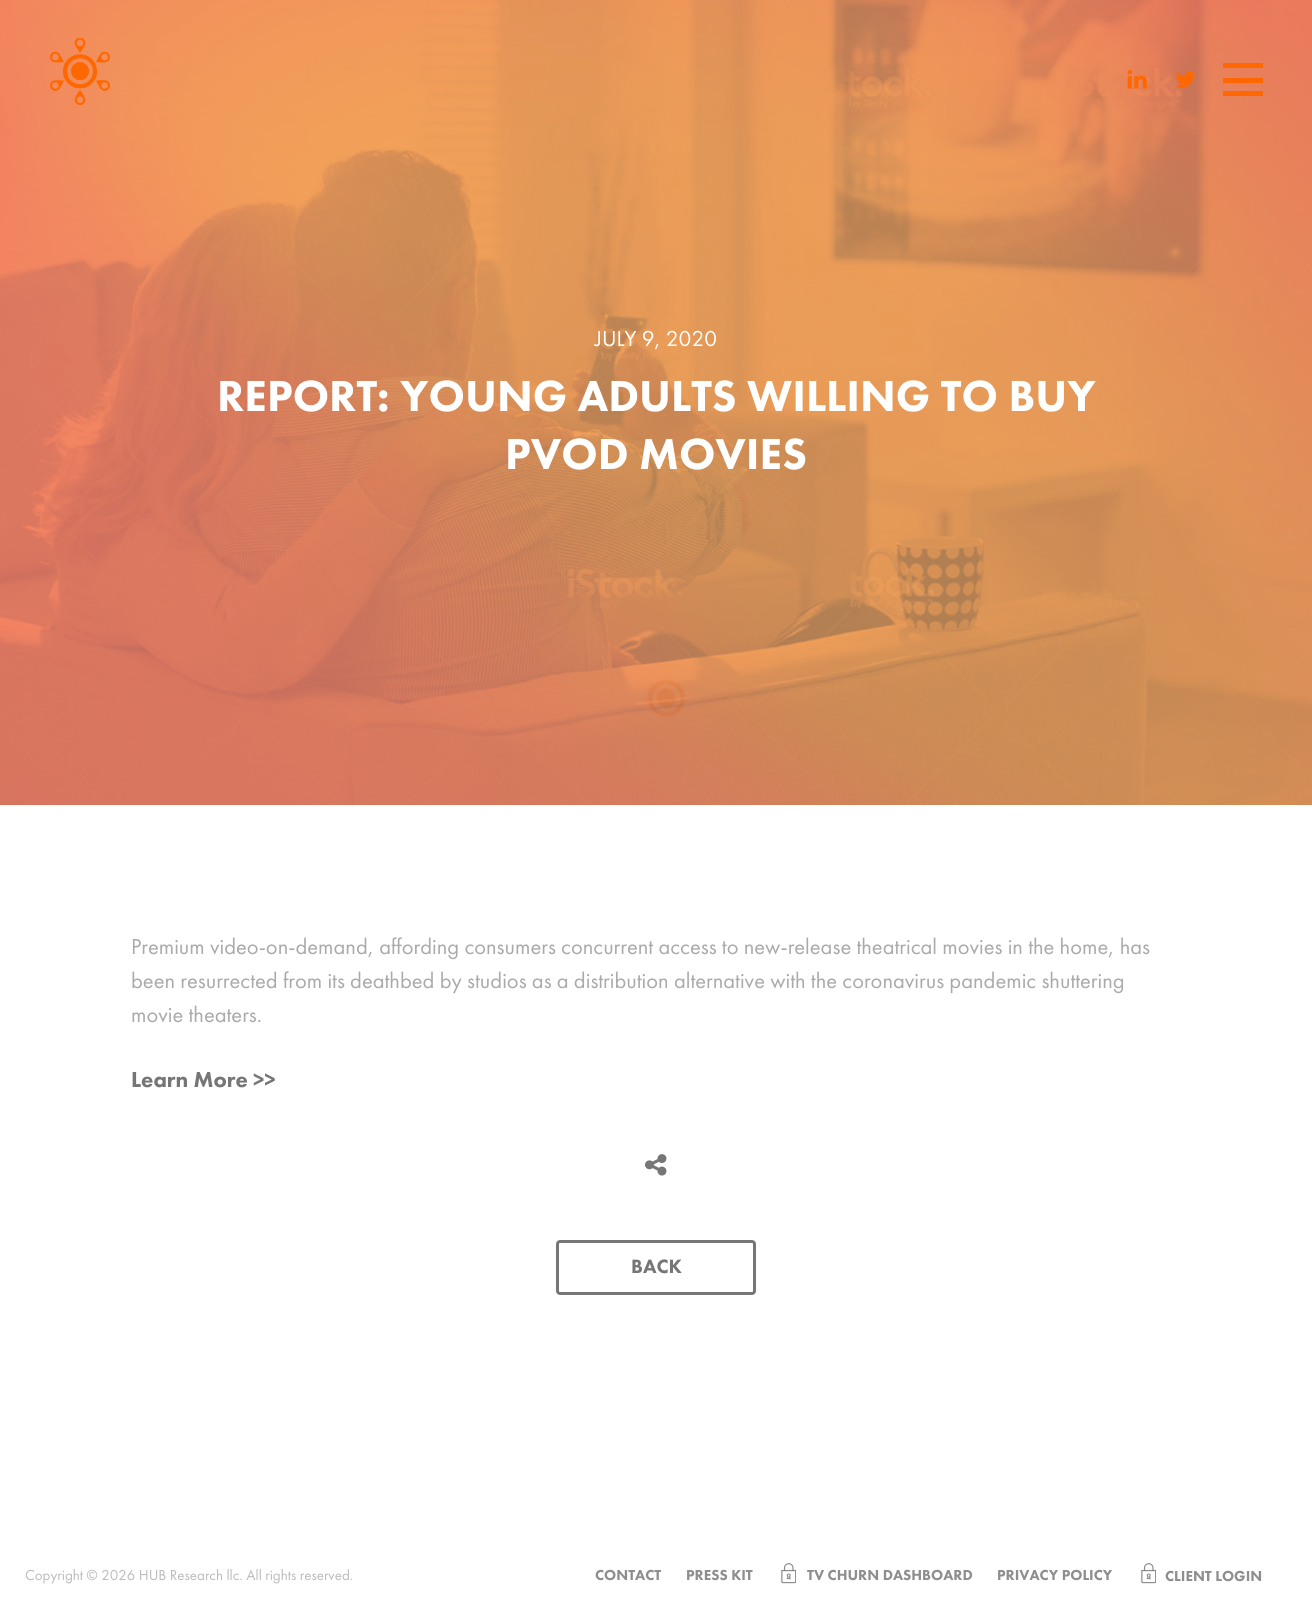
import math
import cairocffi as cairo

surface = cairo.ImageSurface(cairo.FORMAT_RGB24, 1312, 1608)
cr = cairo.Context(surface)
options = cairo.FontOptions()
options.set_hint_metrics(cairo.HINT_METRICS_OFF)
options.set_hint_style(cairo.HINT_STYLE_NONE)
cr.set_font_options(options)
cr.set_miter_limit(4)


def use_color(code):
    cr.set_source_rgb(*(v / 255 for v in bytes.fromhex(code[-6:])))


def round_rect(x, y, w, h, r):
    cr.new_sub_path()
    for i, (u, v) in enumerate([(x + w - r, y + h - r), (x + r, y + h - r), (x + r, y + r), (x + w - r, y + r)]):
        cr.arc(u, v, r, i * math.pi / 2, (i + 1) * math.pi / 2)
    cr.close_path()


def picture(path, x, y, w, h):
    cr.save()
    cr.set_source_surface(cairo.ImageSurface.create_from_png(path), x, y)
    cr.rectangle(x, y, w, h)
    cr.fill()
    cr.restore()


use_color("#ffffff")
cr.paint()
use_color("#dddddd")
cr.rectangle(0, 0, 1312, 805)
cr.fill()
picture("img7.png", 647, 678, 39, 40)
picture("img4.png", 0, 0, 1312, 805)
picture("img1.png", 50, 38, 60, 67)
picture("img2.png", 1127, 70, 20, 19)
picture("img3.png", 1175, 71, 21, 17)
use_color("#ff6800")
cr.rectangle(1223, 63, 40, 5)
cr.fill()
cr.rectangle(1223, 78, 40, 5)
cr.fill()
cr.rectangle(1223, 91, 40, 5)
cr.fill()
cr.select_font_face("Futura PT")
cr.set_font_size(22.5)
use_color("#ffffff")
cr.move_to(595, 346)
cr.show_text("JULY 9, 2020")
cr.select_font_face("Futura PT Black")
cr.set_font_size(45)
cr.move_to(217, 411)
cr.show_text("REPORT: YOUNG ADULTS WILLING TO BUY")
cr.move_to(505, 469)
cr.show_text("PVOD MOVIES")
cr.select_font_face("Futura PT")
cr.set_font_size(22.5)
use_color("#aaaaaa")
cr.move_to(131, 954)
cr.show_text("Premium video-on-demand, affording consumers concurrent access to new-release theatrical movies in the home, has")
cr.move_to(131, 988)
cr.show_text("been resurrected from its deathbed by studios as a distribution alternative with the coronavirus pandemic shuttering")
cr.move_to(131, 1022)
cr.show_text("movie theaters.")
cr.select_font_face("Futura PT Black")
use_color("#767676")
cr.move_to(131, 1087)
cr.show_text("Learn More >>")
picture("img5.png", 645, 1154, 22, 22)
round_rect(557.5, 1241.5, 197, 52, 2.5)
cr.set_line_width(3)
cr.stroke()
cr.set_font_size(20)
cr.move_to(631, 1273)
cr.show_text("BACK")
cr.select_font_face("Futura PT")
cr.set_font_size(15)
use_color("#bbbbbb")
cr.move_to(25, 1580)
cr.show_text("Copyright © 2026 HUB Research llc. All rights reserved.")
cr.select_font_face("Futura PT Black")
use_color("#8e8e8e")
cr.move_to(595, 1580)
cr.show_text("CONTACT")
cr.move_to(686, 1580)
cr.show_text("PRESS KIT")
picture("img6.png", 781, 1563, 15, 21)
cr.move_to(807, 1580)
cr.show_text("TV CHURN DASHBOARD")
cr.move_to(997, 1580)
cr.show_text("PRIVACY POLICY")
picture("img6.png", 1141, 1563, 15, 21)
cr.move_to(1165, 1581)
cr.show_text("CLIENT LOGIN")
surface.write_to_png("result.png")
